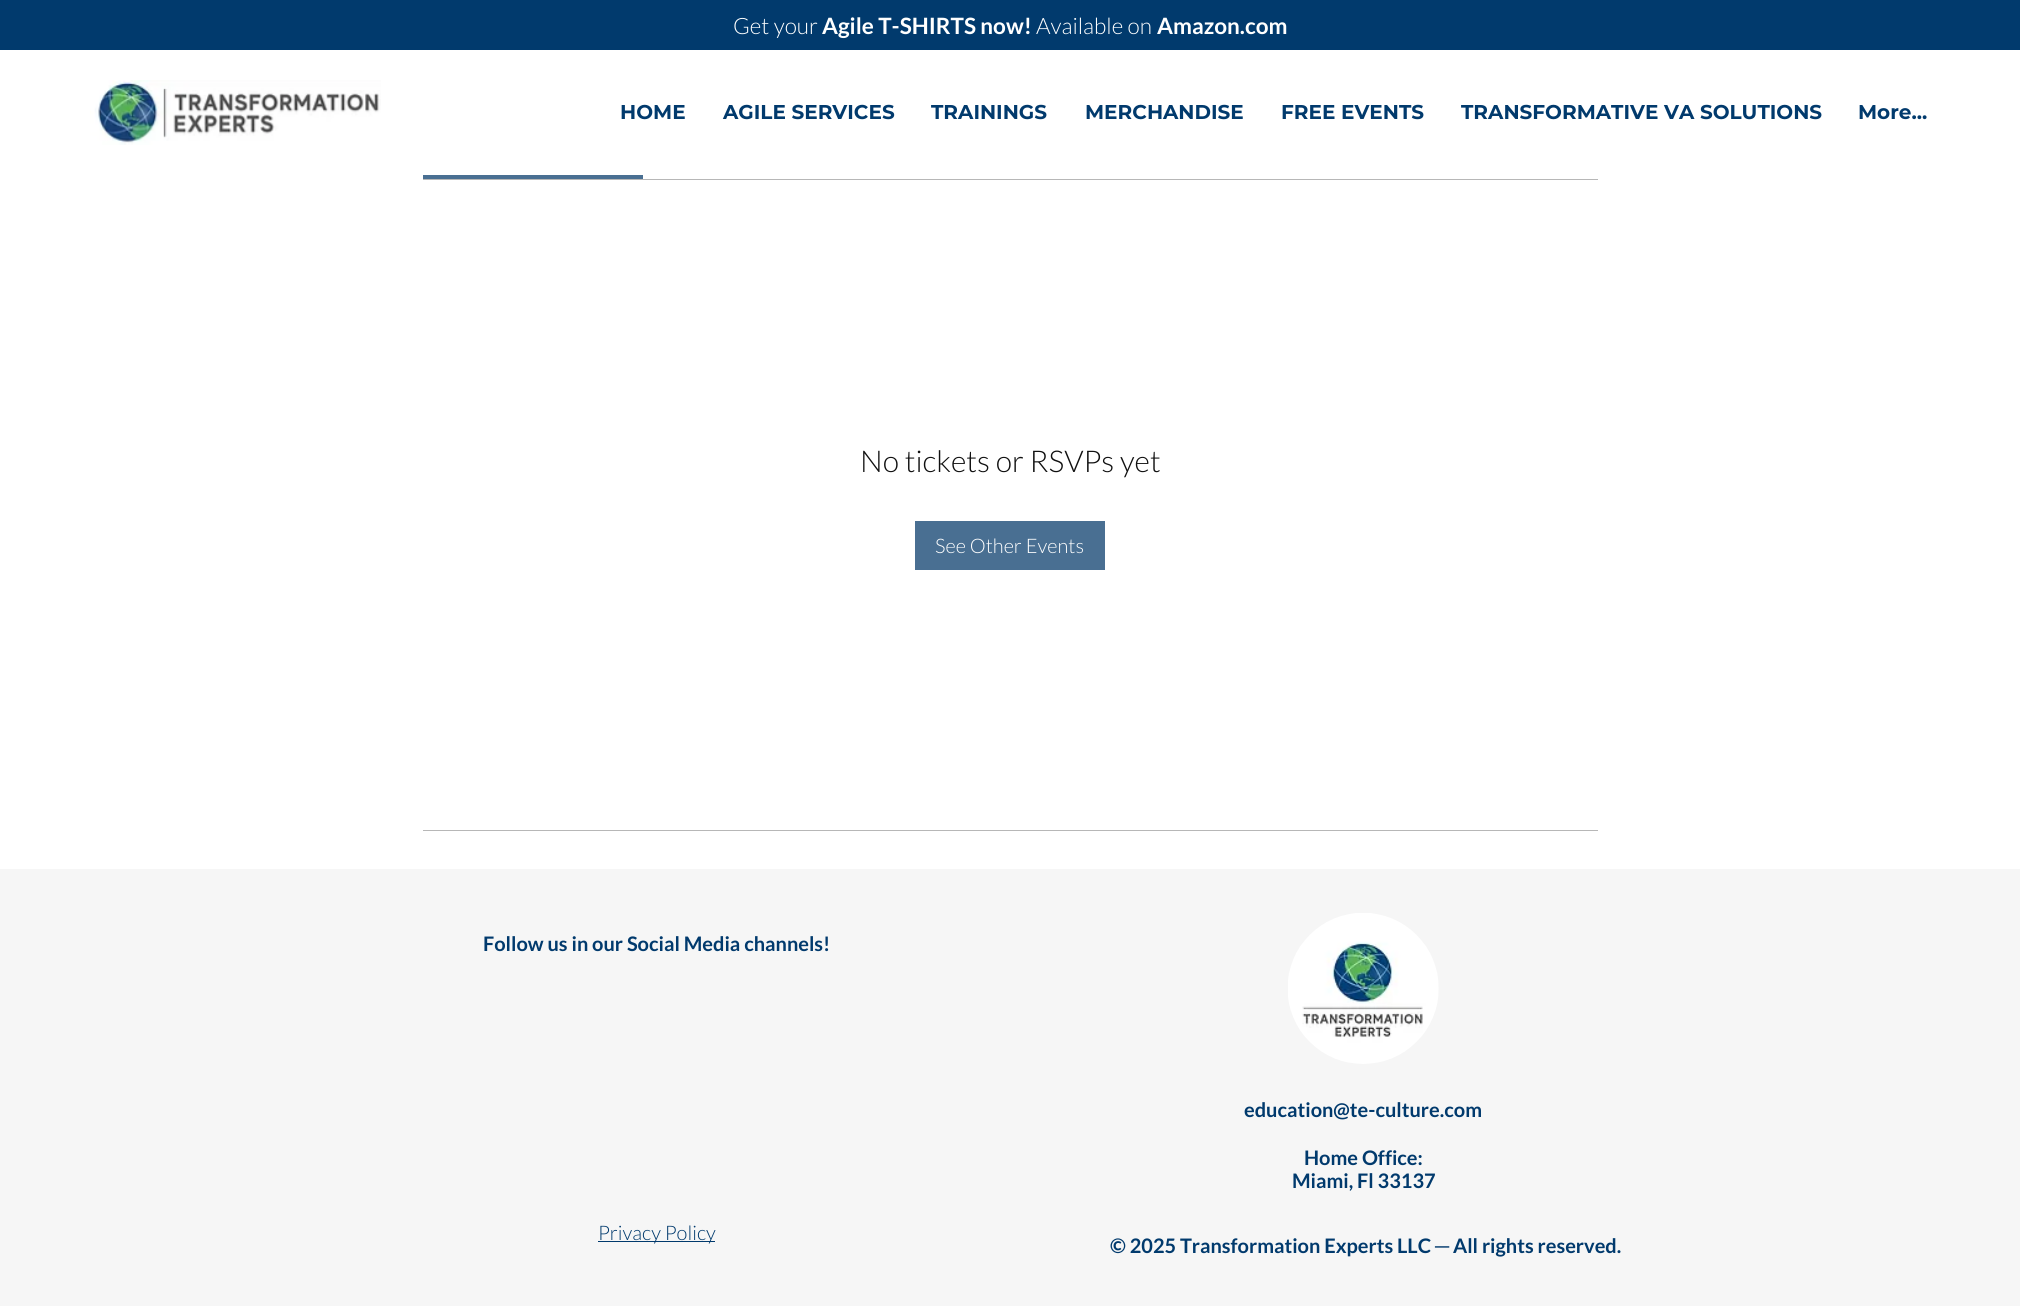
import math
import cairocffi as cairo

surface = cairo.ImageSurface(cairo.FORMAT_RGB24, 2020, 1306)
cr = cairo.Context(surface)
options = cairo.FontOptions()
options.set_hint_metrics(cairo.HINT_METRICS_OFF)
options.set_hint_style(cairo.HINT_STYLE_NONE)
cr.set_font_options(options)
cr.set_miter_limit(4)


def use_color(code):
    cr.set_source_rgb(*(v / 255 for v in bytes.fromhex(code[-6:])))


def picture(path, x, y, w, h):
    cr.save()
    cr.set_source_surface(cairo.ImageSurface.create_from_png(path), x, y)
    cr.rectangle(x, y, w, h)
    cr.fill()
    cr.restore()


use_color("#ffffff")
cr.paint()
use_color("#013a6d")
cr.rectangle(0, 0, 2020, 50)
cr.fill()
cr.select_font_face("Lato Light")
cr.set_font_size(22.5)
use_color("#ffffff")
cr.move_to(733, 34)
cr.show_text("Get your")
cr.select_font_face("Lato", cairo.FONT_SLANT_NORMAL, cairo.FONT_WEIGHT_BOLD)
cr.move_to(822, 34)
cr.show_text("Agile T-SHIRTS now!")
cr.select_font_face("Lato Light")
cr.move_to(1036, 34)
cr.show_text("Available on")
cr.select_font_face("Lato", cairo.FONT_SLANT_NORMAL, cairo.FONT_WEIGHT_BOLD)
cr.move_to(1157, 34)
cr.show_text("Amazon.com")
picture("img1.png", 90, 80, 291, 65)
cr.select_font_face("Montserrat", cairo.FONT_SLANT_NORMAL, cairo.FONT_WEIGHT_BOLD)
cr.set_font_size(20)
use_color("#013a6d")
cr.move_to(620, 119)
cr.show_text("HOME")
cr.move_to(723, 119)
cr.show_text("AGILE SERVICES")
cr.move_to(931, 119)
cr.show_text("TRAININGS")
cr.move_to(1085, 119)
cr.show_text("MERCHANDISE")
cr.move_to(1281, 119)
cr.show_text("FREE EVENTS")
cr.move_to(1461, 119)
cr.show_text("TRANSFORMATIVE VA SOLUTIONS")
cr.move_to(1858, 119)
cr.show_text("More...")
use_color("#496f92")
cr.rectangle(423, 175, 220, 4)
cr.fill()
use_color("#b7b7b7")
cr.rectangle(423, 179, 1175, 1)
cr.fill()
cr.select_font_face("Lato Light")
cr.set_font_size(30)
use_color("#101010")
cr.move_to(860, 472)
cr.show_text("No tickets or RSVPs yet")
use_color("#496f92")
cr.rectangle(915, 521, 190, 49)
cr.fill()
cr.set_font_size(20)
use_color("#ffffff")
cr.move_to(935, 553)
cr.show_text("See Other Events")
use_color("#b7b7b7")
cr.rectangle(423, 830, 1175, 1)
cr.fill()
use_color("#f6f6f6")
cr.rectangle(0, 869, 2020, 437)
cr.fill()
cr.select_font_face("Lato", cairo.FONT_SLANT_NORMAL, cairo.FONT_WEIGHT_BOLD)
use_color("#013a6d")
cr.move_to(483, 951)
cr.show_text("Follow us in our Social Media channels!")
cr.rectangle(598, 1241, 117, 1)
cr.fill()
cr.select_font_face("Lato Light")
cr.move_to(598, 1240)
cr.show_text("Privacy Policy")
picture("img2.png", 1288, 913, 151, 151)
cr.select_font_face("Lato", cairo.FONT_SLANT_NORMAL, cairo.FONT_WEIGHT_BOLD)
cr.move_to(1244, 1117)
cr.show_text("education@te-culture.com")
cr.move_to(1304, 1165)
cr.show_text("Home Office:")
cr.move_to(1292, 1188)
cr.show_text("Miami, Fl 33137")
cr.move_to(1110, 1253)
cr.show_text("© 2025 Transformation Experts LLC")
cr.select_font_face("Liberation Sans", cairo.FONT_SLANT_NORMAL, cairo.FONT_WEIGHT_BOLD)
cr.move_to(1435, 1253)
cr.show_text("─")
cr.select_font_face("Lato", cairo.FONT_SLANT_NORMAL, cairo.FONT_WEIGHT_BOLD)
cr.move_to(1453, 1253)
cr.show_text("All rights reserved.")
surface.write_to_png("result.png")
